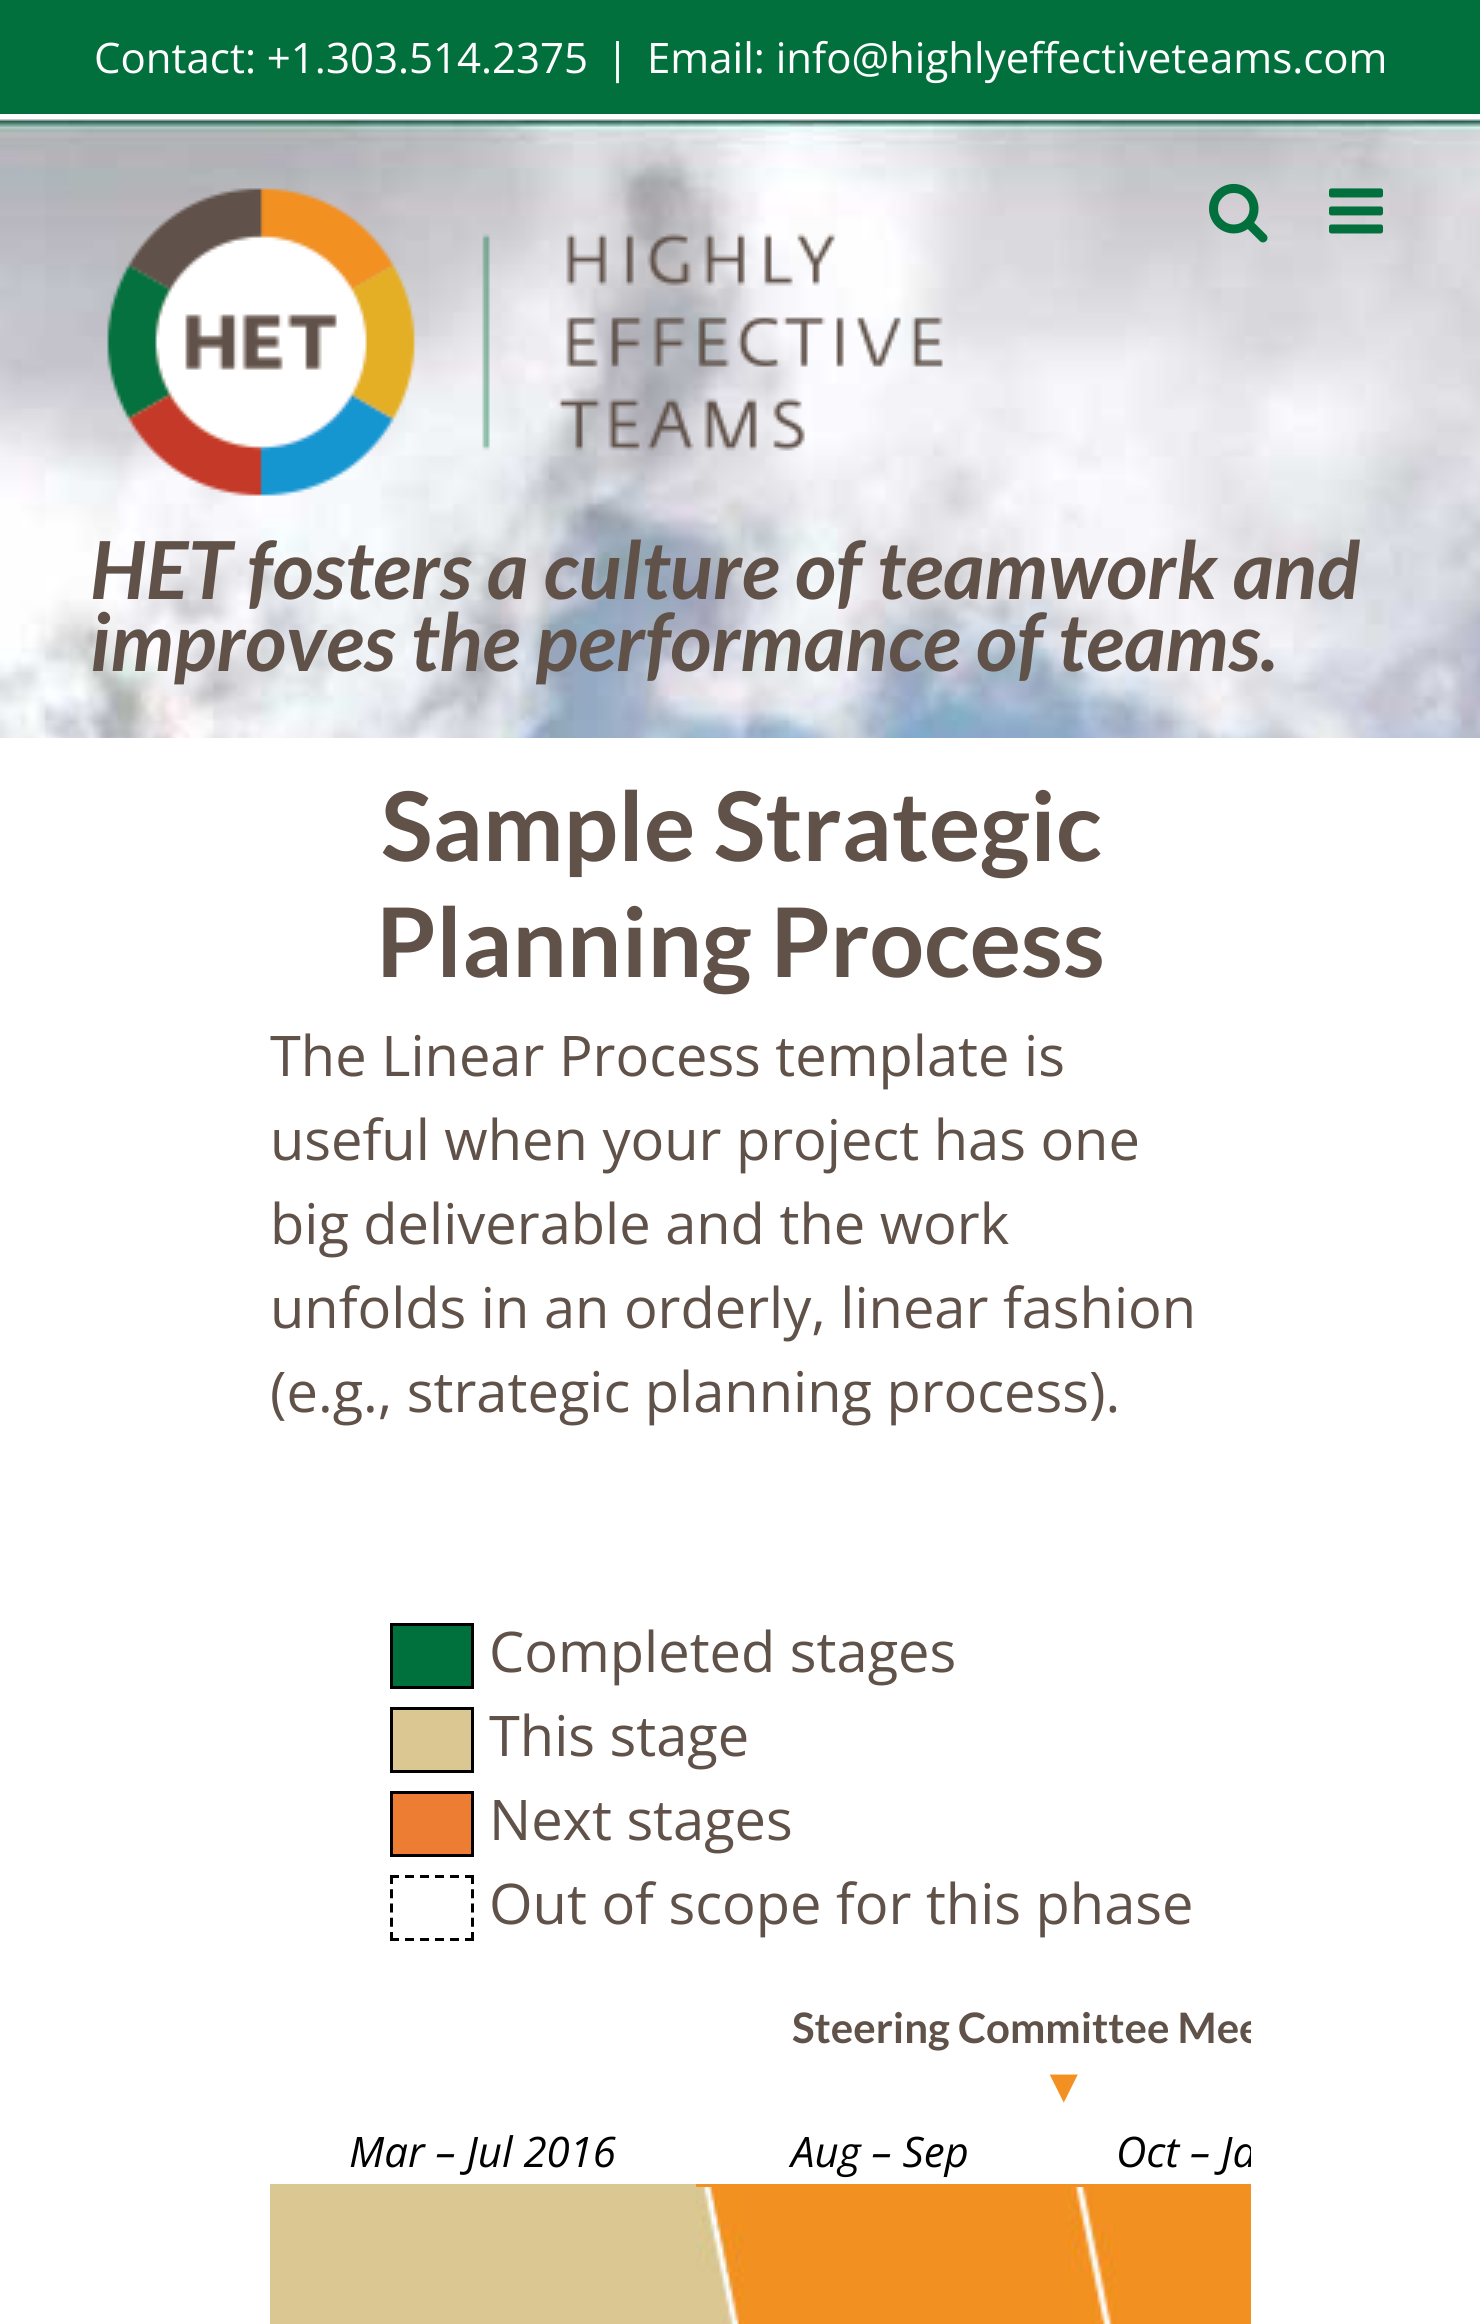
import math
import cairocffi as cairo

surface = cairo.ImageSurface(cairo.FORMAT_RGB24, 1480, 2324)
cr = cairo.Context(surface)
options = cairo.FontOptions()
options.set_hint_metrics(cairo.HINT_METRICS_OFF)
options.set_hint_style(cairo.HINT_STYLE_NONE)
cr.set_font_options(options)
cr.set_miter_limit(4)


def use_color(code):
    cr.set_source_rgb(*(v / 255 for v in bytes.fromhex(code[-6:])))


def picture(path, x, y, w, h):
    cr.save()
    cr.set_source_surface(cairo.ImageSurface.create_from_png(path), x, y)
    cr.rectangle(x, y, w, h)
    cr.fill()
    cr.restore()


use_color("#ffffff")
cr.paint()
use_color("#02703c")
cr.rectangle(0, 0, 1480, 114)
cr.fill()
cr.select_font_face("Open Sans")
cr.set_font_size(42)
use_color("#ffffff")
cr.move_to(94, 73)
cr.show_text("Contact: +1.303.514.2375")
cr.move_to(606, 73)
cr.show_text("|")
cr.move_to(647, 73)
cr.show_text("Email: info@highlyeffectiveteams.com")
picture("img1.png", 0, 119, 1480, 619)
picture("img2.png", 1209, 183, 59, 60)
picture("img3.png", 1329, 188, 54, 46)
picture("img4.png", 107, 188, 836, 308)
cr.select_font_face("Lato", cairo.FONT_SLANT_ITALIC, cairo.FONT_WEIGHT_BOLD)
cr.set_font_size(80)
use_color("#605149")
cr.move_to(90, 599)
cr.show_text("HET fosters a culture of teamwork and")
cr.move_to(90, 671)
cr.show_text("improves the performance of teams.")
cr.select_font_face("Lato", cairo.FONT_SLANT_NORMAL, cairo.FONT_WEIGHT_BOLD)
cr.set_font_size(96)
cr.move_to(381, 861)
cr.show_text("Sample Strategic")
cr.move_to(376, 977)
cr.show_text("Planning Process")
cr.select_font_face("Open Sans")
cr.set_font_size(56)
cr.move_to(270, 1076)
cr.show_text("The Linear Process template is")
cr.move_to(270, 1160)
cr.show_text("useful when your project has one")
cr.move_to(270, 1244)
cr.show_text("big deliverable and the work")
cr.move_to(270, 1328)
cr.show_text("unfolds in an orderly, linear fashion")
cr.move_to(270, 1412)
cr.show_text("(e.g., strategic planning process).")
use_color("#00703c")
cr.rectangle(391.5, 1624.5, 81, 63)
cr.fill_preserve()
use_color("#000000")
cr.set_line_width(3)
cr.stroke()
use_color("#605149")
cr.move_to(489, 1672)
cr.show_text("Completed stages")
use_color("#dac792")
cr.rectangle(391.5, 1708.5, 81, 63)
cr.fill_preserve()
use_color("#000000")
cr.stroke()
use_color("#605149")
cr.move_to(489, 1756)
cr.show_text("This stage")
use_color("#ed7d32")
cr.rectangle(391.5, 1792.5, 81, 63)
cr.fill_preserve()
use_color("#000000")
cr.stroke()
use_color("#605149")
cr.move_to(489, 1840)
cr.show_text("Next stages")
cr.new_path()
cr.move_to(390, 1876.5)
cr.line_to(474, 1876.5)
use_color("#000000")
cr.set_dash([9, 6])
cr.stroke()
cr.new_path()
cr.move_to(472.5, 1875)
cr.line_to(472.5, 1941)
cr.set_dash([9, 5.25])
cr.stroke()
cr.new_path()
cr.move_to(390, 1939.5)
cr.line_to(474, 1939.5)
cr.set_dash([9, 6])
cr.stroke()
cr.new_path()
cr.move_to(391.5, 1875)
cr.line_to(391.5, 1941)
cr.set_dash([9, 5.25])
cr.stroke()
use_color("#605149")
cr.move_to(489, 1924)
cr.show_text("Out of scope for this phase")
cr.save()
cr.rectangle(270, 2001, 981, 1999)
cr.clip()
cr.select_font_face("Lato", cairo.FONT_SLANT_NORMAL, cairo.FONT_WEIGHT_BOLD)
cr.set_font_size(42)
cr.move_to(792, 2043)
cr.show_text("Steering Committee Mee")
cr.restore()
cr.select_font_face("Liberation Sans", cairo.FONT_SLANT_NORMAL, cairo.FONT_WEIGHT_BOLD)
cr.set_font_size(48)
use_color("#f29121")
cr.move_to(1040, 2102)
cr.show_text("▼")
cr.select_font_face("Open Sans", cairo.FONT_SLANT_ITALIC)
cr.set_font_size(42)
use_color("#000000")
cr.move_to(349, 2167)
cr.show_text("Mar – Jul 2016")
cr.move_to(791, 2167)
cr.show_text("Aug – Sep")
cr.save()
cr.rectangle(270, 2001, 981, 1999)
cr.clip()
cr.move_to(1116, 2167)
cr.show_text("Oct – Ja")
cr.restore()
use_color("#dac792")
cr.rectangle(273, 2187, 420, 137)
cr.fill()
use_color("#f29121")
cr.rectangle(693, 2184, 558, 3)
cr.fill()
use_color("#dac792")
cr.rectangle(270, 2184, 426, 3)
cr.fill()
cr.rectangle(693, 2184, 3, 140)
cr.fill()
cr.rectangle(270, 2184, 3, 140)
cr.fill()
use_color("#f29121")
cr.rectangle(745, 2187, 506, 137)
cr.fill()
picture("img5.png", 1068, 2187, 49, 137)
picture("img6.png", 696, 2187, 49, 137)
surface.write_to_png("result.png")
